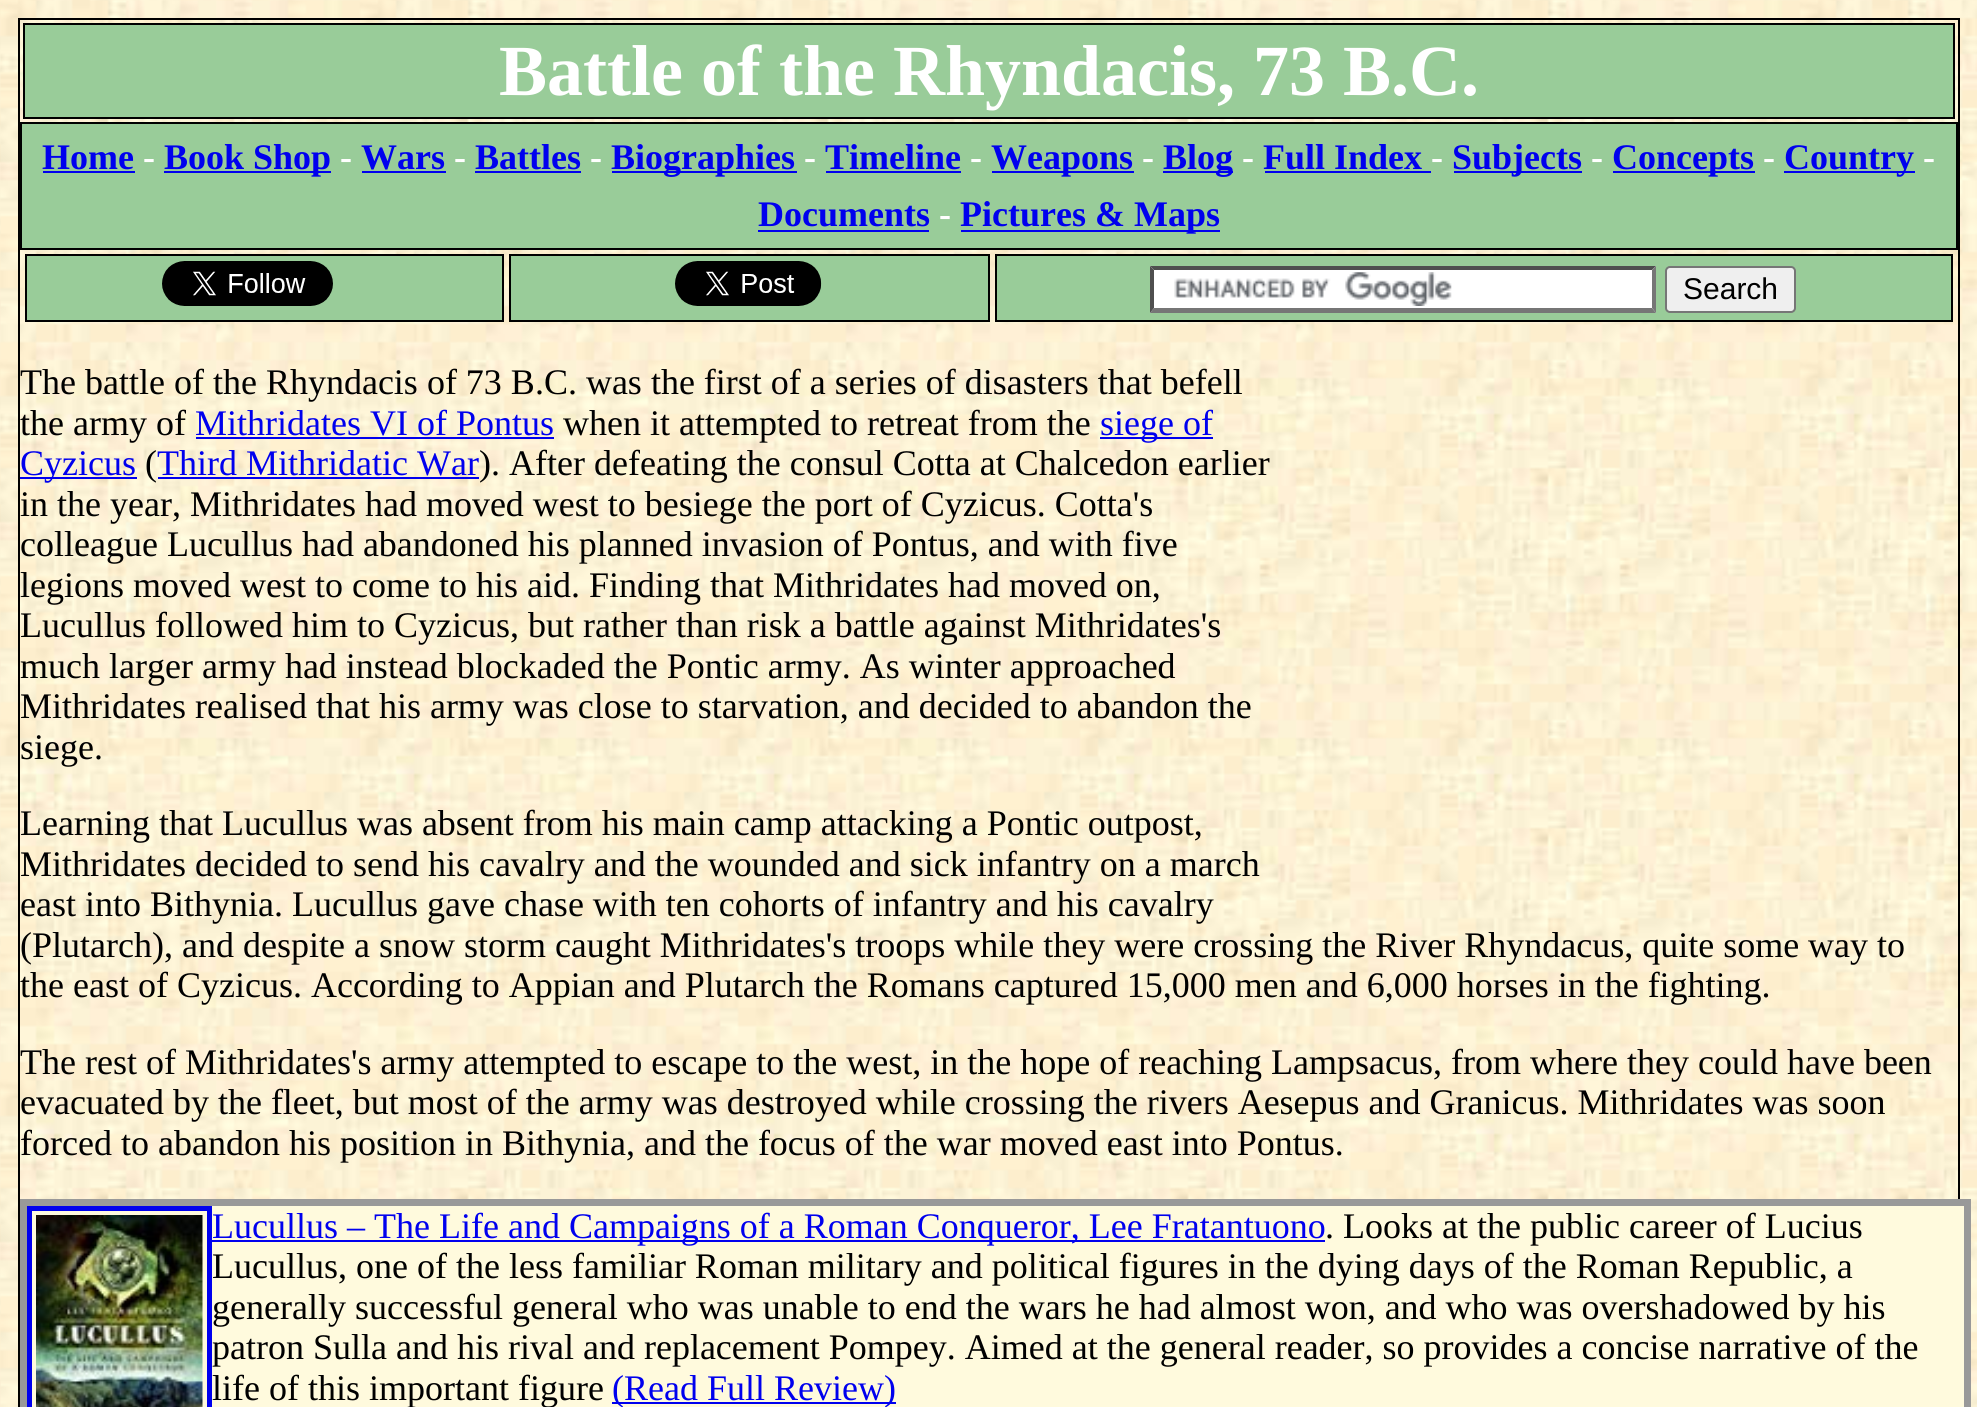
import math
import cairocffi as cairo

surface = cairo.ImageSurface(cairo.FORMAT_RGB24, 1977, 1407)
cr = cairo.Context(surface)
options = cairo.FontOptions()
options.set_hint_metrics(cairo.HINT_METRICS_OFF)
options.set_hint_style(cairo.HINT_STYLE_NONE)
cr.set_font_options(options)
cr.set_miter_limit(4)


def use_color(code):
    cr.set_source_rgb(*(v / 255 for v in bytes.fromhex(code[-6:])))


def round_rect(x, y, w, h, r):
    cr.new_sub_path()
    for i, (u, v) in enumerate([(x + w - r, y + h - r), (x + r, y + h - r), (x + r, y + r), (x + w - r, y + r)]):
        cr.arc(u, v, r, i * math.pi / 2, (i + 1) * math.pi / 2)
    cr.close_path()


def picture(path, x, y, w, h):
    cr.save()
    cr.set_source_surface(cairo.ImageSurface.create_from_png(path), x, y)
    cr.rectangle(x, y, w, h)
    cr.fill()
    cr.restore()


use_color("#ffffff")
cr.paint()
picture("img1.png", 0, 0, 1977, 1407)
cr.rectangle(19, 19, 1940, 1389)
use_color("#000000")
cr.stroke()
use_color("#99cc99")
cr.rectangle(24, 24, 1930, 94)
cr.fill_preserve()
use_color("#000000")
cr.stroke()
cr.select_font_face("Liberation Serif", cairo.FONT_SLANT_NORMAL, cairo.FONT_WEIGHT_BOLD)
cr.set_font_size(72)
use_color("#ffffff")
cr.move_to(499, 95)
cr.show_text("Battle of the Rhyndacis, 73 B.C.")
use_color("#99cc99")
cr.rectangle(21, 123, 1936, 126)
cr.fill_preserve()
use_color("#000000")
cr.stroke()
cr.set_font_size(36)
use_color("#0000ee")
cr.move_to(42, 169)
cr.show_text("Home")
cr.rectangle(43, 171, 92, 2)
cr.fill()
use_color("#ffffff")
cr.move_to(143, 169)
cr.show_text("-")
use_color("#0000ee")
cr.rectangle(164, 171, 167, 2)
cr.fill()
cr.move_to(164, 169)
cr.show_text("Book Shop")
use_color("#ffffff")
cr.move_to(340, 169)
cr.show_text("-")
use_color("#0000ee")
cr.move_to(361, 169)
cr.show_text("Wars")
cr.rectangle(362, 171, 84, 2)
cr.fill()
use_color("#ffffff")
cr.move_to(454, 169)
cr.show_text("-")
use_color("#0000ee")
cr.move_to(475, 169)
cr.show_text("Battles")
cr.rectangle(475, 171, 106, 2)
cr.fill()
use_color("#ffffff")
cr.move_to(590, 169)
cr.show_text("-")
use_color("#0000ee")
cr.rectangle(612, 171, 185, 2)
cr.fill()
cr.move_to(611, 169)
cr.show_text("Biographies")
use_color("#ffffff")
cr.move_to(804, 169)
cr.show_text("-")
use_color("#0000ee")
cr.move_to(825, 169)
cr.show_text("Timeline")
cr.rectangle(826, 171, 135, 2)
cr.fill()
use_color("#ffffff")
cr.move_to(970, 169)
cr.show_text("-")
use_color("#0000ee")
cr.rectangle(992, 171, 142, 2)
cr.fill()
cr.move_to(991, 169)
cr.show_text("Weapons")
use_color("#ffffff")
cr.move_to(1142, 169)
cr.show_text("-")
use_color("#0000ee")
cr.rectangle(1163, 171, 70, 2)
cr.fill()
cr.move_to(1163, 169)
cr.show_text("Blog")
use_color("#ffffff")
cr.move_to(1242, 169)
cr.show_text("-")
use_color("#0000ee")
cr.move_to(1263, 169)
cr.show_text("Full Index")
use_color("#ffffff")
cr.move_to(1431, 169)
cr.show_text("-")
use_color("#0000ee")
cr.rectangle(1265, 171, 166, 2)
cr.fill()
cr.rectangle(1454, 171, 128, 2)
cr.fill()
cr.move_to(1452, 169)
cr.show_text("Subjects")
use_color("#ffffff")
cr.move_to(1591, 169)
cr.show_text("-")
use_color("#0000ee")
cr.rectangle(1613, 171, 142, 2)
cr.fill()
cr.move_to(1612, 169)
cr.show_text("Concepts")
use_color("#ffffff")
cr.move_to(1763, 169)
cr.show_text("-")
use_color("#0000ee")
cr.rectangle(1784, 171, 131, 2)
cr.fill()
cr.move_to(1784, 169)
cr.show_text("Country")
use_color("#ffffff")
cr.move_to(1923, 169)
cr.show_text("-")
use_color("#0000ee")
cr.move_to(758, 226)
cr.show_text("Documents")
cr.rectangle(758, 230, 171, 2)
cr.fill()
use_color("#ffffff")
cr.move_to(939, 226)
cr.show_text("-")
use_color("#0000ee")
cr.rectangle(961, 230, 259, 2)
cr.fill()
cr.move_to(960, 226)
cr.show_text("Pictures & Maps")
use_color("#99cc99")
cr.rectangle(26, 255, 477, 66)
cr.fill_preserve()
use_color("#000000")
cr.stroke()
picture("img2.png", 162, 261, 171, 45)
use_color("#99cc99")
cr.rectangle(510, 255, 479, 66)
cr.fill_preserve()
use_color("#000000")
cr.stroke()
picture("img3.png", 675, 261, 147, 45)
use_color("#99cc99")
cr.rectangle(996, 255, 956, 66)
cr.fill_preserve()
use_color("#000000")
cr.stroke()
use_color("#ffffff")
cr.rectangle(1150, 266, 506, 47)
cr.fill()
picture("img4.png", 1174, 272, 278, 34)
use_color("#4f4f4f")
cr.new_path()
cr.move_to(1150, 266)
cr.line_to(1656, 266)
cr.line_to(1652, 270)
cr.line_to(1154, 270)
cr.close_path()
cr.fill()
use_color("#767676")
cr.new_path()
cr.move_to(1656, 266)
cr.line_to(1656, 313)
cr.line_to(1652, 308)
cr.line_to(1652, 270)
cr.close_path()
cr.fill()
cr.new_path()
cr.move_to(1656, 313)
cr.line_to(1150, 313)
cr.line_to(1154, 308)
cr.line_to(1652, 308)
cr.close_path()
cr.fill()
use_color("#4f4f4f")
cr.new_path()
cr.move_to(1150, 313)
cr.line_to(1150, 266)
cr.line_to(1154, 270)
cr.line_to(1154, 308)
cr.close_path()
cr.fill()
use_color("#efefef")
round_rect(1666, 267, 129, 45, 4)
cr.fill_preserve()
use_color("#767676")
cr.stroke()
cr.select_font_face("Liberation Sans")
cr.set_font_size(30)
use_color("#000000")
cr.move_to(1683, 299)
cr.show_text("Search")
cr.select_font_face("Liberation Serif")
cr.set_font_size(36)
cr.move_to(20, 394)
cr.show_text("The battle of the Rhyndacis of 73 B.C. was the first of a series of disasters that befell")
cr.move_to(20, 435)
cr.show_text("the army of")
use_color("#0000ee")
cr.move_to(195, 435)
cr.show_text("Mithridates VI of Pontus")
cr.rectangle(196, 437, 358, 2)
cr.fill()
use_color("#000000")
cr.move_to(563, 435)
cr.show_text("when it attempted to retreat from the")
use_color("#0000ee")
cr.rectangle(1100, 437, 113, 2)
cr.fill()
cr.move_to(1100, 435)
cr.show_text("siege of")
cr.rectangle(20, 477, 117, 2)
cr.fill()
cr.move_to(20, 475)
cr.show_text("Cyzicus")
use_color("#000000")
cr.move_to(145, 475)
cr.show_text("(")
use_color("#0000ee")
cr.move_to(157, 475)
cr.show_text("Third Mithridatic War")
cr.rectangle(158, 477, 321, 2)
cr.fill()
use_color("#000000")
cr.move_to(479, 475)
cr.show_text("). After defeating the consul Cotta at Chalcedon earlier")
cr.move_to(20, 516)
cr.show_text("in the year, Mithridates had moved west to besiege the port of Cyzicus. Cotta's")
cr.move_to(20, 556)
cr.show_text("colleague Lucullus had abandoned his planned invasion of Pontus, and with five")
cr.move_to(20, 597)
cr.show_text("legions moved west to come to his aid. Finding that Mithridates had moved on,")
cr.move_to(20, 637)
cr.show_text("Lucullus followed him to Cyzicus, but rather than risk a battle against Mithridates's")
cr.move_to(20, 678)
cr.show_text("much larger army had instead blockaded the Pontic army. As winter approached")
cr.move_to(20, 718)
cr.show_text("Mithridates realised that his army was close to starvation, and decided to abandon the")
cr.move_to(20, 759)
cr.show_text("siege.")
cr.move_to(20, 835)
cr.show_text("Learning that Lucullus was absent from his main camp attacking a Pontic outpost,")
cr.move_to(20, 876)
cr.show_text("Mithridates decided to send his cavalry and the wounded and sick infantry on a march")
cr.move_to(20, 916)
cr.show_text("east into Bithynia. Lucullus gave chase with ten cohorts of infantry and his cavalry")
cr.move_to(20, 957)
cr.show_text("(Plutarch), and despite a snow storm caught Mithridates's troops while they were crossing the River Rhyndacus, quite some way to")
cr.move_to(20, 997)
cr.show_text("the east of Cyzicus. According to Appian and Plutarch the Romans captured 15,000 men and 6,000 horses in the fighting.")
cr.move_to(20, 1074)
cr.show_text("The rest of Mithridates's army attempted to escape to the west, in the hope of reaching Lampsacus, from where they could have been")
cr.move_to(20, 1114)
cr.show_text("evacuated by the fleet, but most of the army was destroyed while crossing the rivers Aesepus and Granicus. Mithridates was soon")
cr.move_to(20, 1155)
cr.show_text("forced to abandon his position in Bithynia, and the focus of the war moved east into Pontus.")
use_color("#fffadd")
cr.rectangle(32, 1206, 1932, 201)
cr.fill()
cr.rectangle(23.5, 1202.5, 1944, 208)
use_color("#999999")
cr.set_line_width(7)
cr.stroke()
cr.rectangle(29.5, 1208.5, 180, 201)
use_color("#0000ee")
cr.set_line_width(5)
cr.stroke()
picture("img5.png", 36, 1215, 167, 192)
cr.rectangle(212, 1240, 1113, 2)
cr.fill()
cr.move_to(212, 1238)
cr.show_text("Lucullus – The Life and Campaigns of a Roman Conqueror, Lee Fratantuono")
use_color("#000000")
cr.move_to(1325, 1238)
cr.show_text(". Looks at the public career of Lucius")
cr.move_to(212, 1278)
cr.show_text("Lucullus, one of the less familiar Roman military and political figures in the dying days of the Roman Republic, a")
cr.move_to(212, 1319)
cr.show_text("generally successful general who was unable to end the wars he had almost won, and who was overshadowed by his")
cr.move_to(212, 1359)
cr.show_text("patron Sulla and his rival and replacement Pompey. Aimed at the general reader, so provides a concise narrative of the")
cr.move_to(212, 1400)
cr.show_text("life of this important figure")
use_color("#0000ee")
cr.rectangle(612, 1402, 284, 2)
cr.fill()
cr.move_to(612, 1400)
cr.show_text("(Read Full Review)")
surface.write_to_png("result.png")
